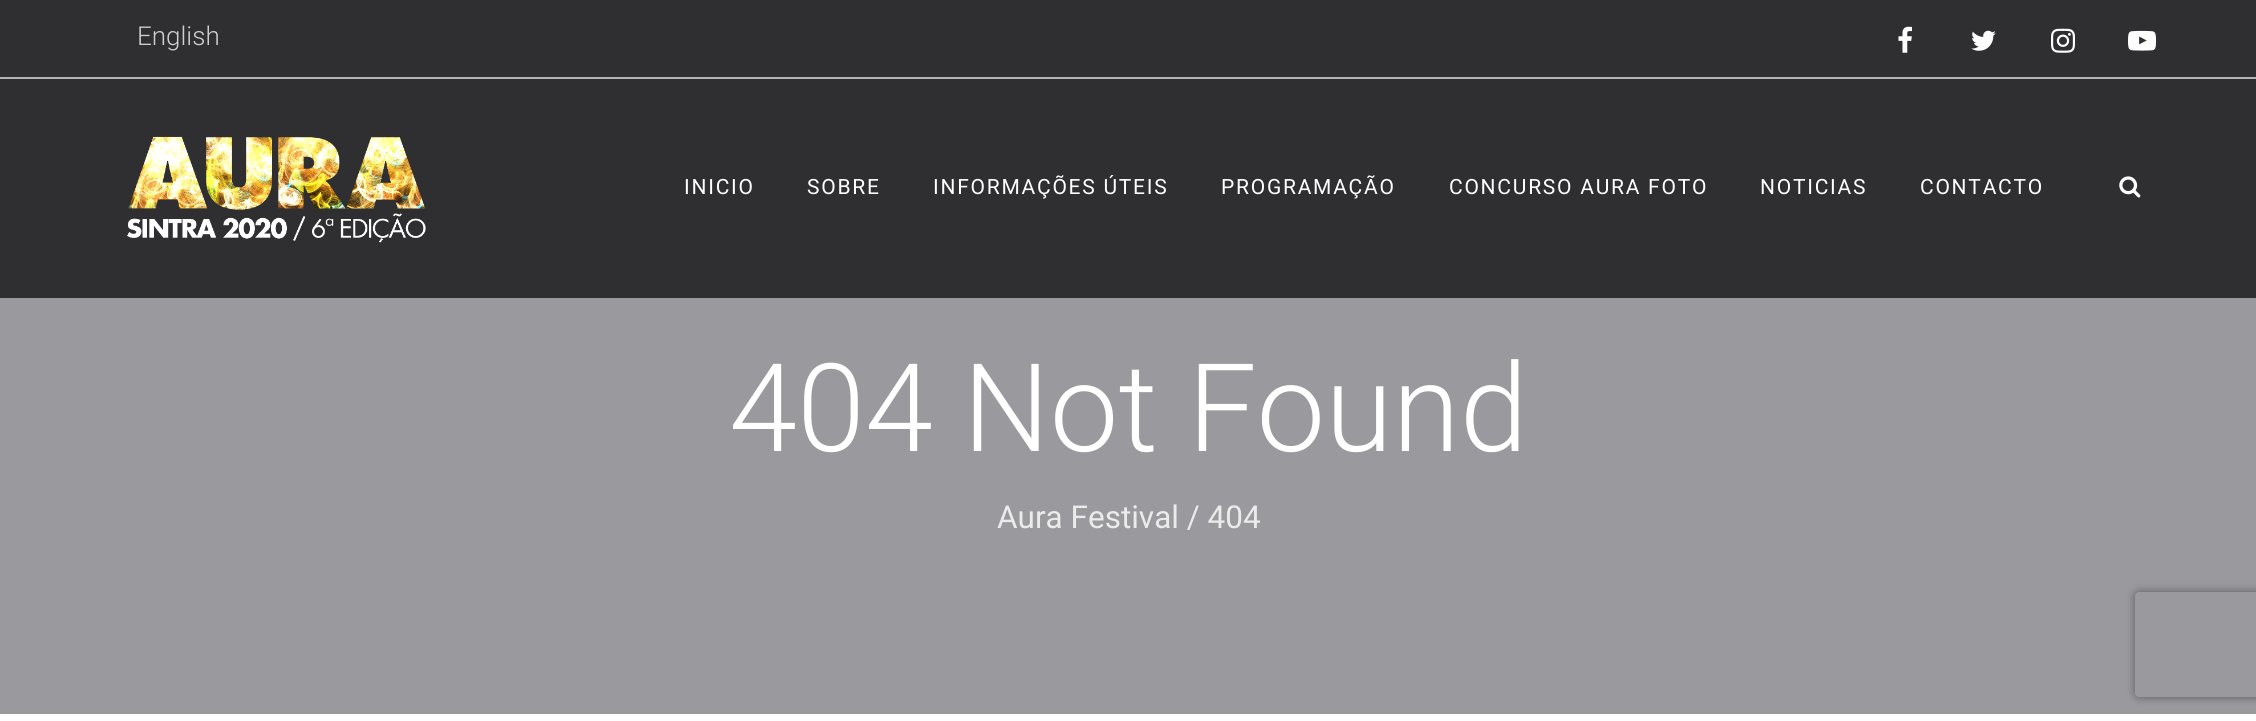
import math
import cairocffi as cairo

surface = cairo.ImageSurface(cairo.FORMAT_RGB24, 2256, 721)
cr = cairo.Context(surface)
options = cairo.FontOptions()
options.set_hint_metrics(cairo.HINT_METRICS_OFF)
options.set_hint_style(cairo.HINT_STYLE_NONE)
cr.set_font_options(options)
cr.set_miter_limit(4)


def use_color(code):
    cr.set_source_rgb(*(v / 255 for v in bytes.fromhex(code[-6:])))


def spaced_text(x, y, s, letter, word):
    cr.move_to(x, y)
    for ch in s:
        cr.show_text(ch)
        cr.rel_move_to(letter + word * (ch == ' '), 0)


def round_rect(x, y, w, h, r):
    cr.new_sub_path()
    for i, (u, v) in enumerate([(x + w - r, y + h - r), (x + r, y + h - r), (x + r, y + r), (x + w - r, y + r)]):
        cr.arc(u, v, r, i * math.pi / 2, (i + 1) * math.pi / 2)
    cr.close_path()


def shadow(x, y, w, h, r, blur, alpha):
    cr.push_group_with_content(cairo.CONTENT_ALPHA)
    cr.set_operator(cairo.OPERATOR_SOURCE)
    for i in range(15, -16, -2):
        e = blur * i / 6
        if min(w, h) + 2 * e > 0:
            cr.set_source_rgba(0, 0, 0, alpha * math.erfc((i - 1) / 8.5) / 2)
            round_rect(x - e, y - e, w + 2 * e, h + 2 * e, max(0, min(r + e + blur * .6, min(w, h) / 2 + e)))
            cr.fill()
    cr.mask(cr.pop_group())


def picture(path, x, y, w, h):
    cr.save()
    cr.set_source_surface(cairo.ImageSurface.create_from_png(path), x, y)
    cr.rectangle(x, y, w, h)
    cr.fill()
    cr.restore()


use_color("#ffffff")
cr.paint()
use_color("#9a9a9e")
cr.rectangle(0, 298, 2256, 416)
cr.fill()
use_color("#2f2f31")
cr.rectangle(0, 0, 2256, 298)
cr.fill()
use_color("#b4b4b5")
cr.rectangle(0, 77, 2256, 2)
cr.fill()
cr.select_font_face("Roboto Light")
cr.set_font_size(26)
use_color("#cfcfcf")
cr.move_to(137, 45)
cr.show_text("English")
picture("img1.png", 1898, 26, 14, 27)
picture("img2.png", 1971, 30, 25, 21)
picture("img3.png", 2051, 28, 24, 25)
picture("img4.png", 2128, 30, 28, 21)
picture("img5.png", 127, 136, 299, 107)
picture("img6.png", 2119, 176, 22, 22)
cr.select_font_face("Roboto")
cr.set_font_size(21)
use_color("#ffffff")
spaced_text(684, 194, "INICIO", 1.75, 0)
spaced_text(807, 194, "SOBRE", 1.75, 0)
spaced_text(933, 194, "INFORMAÇÕES ÚTEIS", 1.75, 0)
spaced_text(1221, 194, "PROGRAMAÇÃO", 1.75, 0)
spaced_text(1449, 194, "CONCURSO AURA FOTO", 1.75, 0)
spaced_text(1760, 194, "NOTICIAS", 1.75, 0)
spaced_text(1920, 194, "CONTACTO", 1.75, 0)
cr.select_font_face("Roboto Light")
cr.set_font_size(122.5)
cr.move_to(729, 451)
cr.show_text("404 Not Found")
cr.select_font_face("Roboto")
cr.set_font_size(31.5)
use_color("#ebebec")
cr.move_to(997, 528)
cr.show_text("Aura Festival / 404")
cr.save()
cr.set_fill_rule(cairo.FILL_RULE_EVEN_ODD)
cr.new_path()
cr.move_to(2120, 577)
cr.line_to(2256, 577)
cr.line_to(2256, 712)
cr.line_to(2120, 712)
cr.close_path()
cr.move_to(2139, 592)
cr.line_to(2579, 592)
cr.curve_to(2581, 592, 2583, 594, 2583, 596)
cr.line_to(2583, 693)
cr.curve_to(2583, 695, 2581, 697, 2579, 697)
cr.line_to(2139, 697)
cr.curve_to(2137, 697, 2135, 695, 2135, 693)
cr.line_to(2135, 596)
cr.curve_to(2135, 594, 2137, 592, 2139, 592)
cr.close_path()
cr.clip()
use_color("#5a5a5e")
shadow(2135, 592, 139, 105, 4, 4.5, 1)
cr.restore()
surface.write_to_png("result.png")
